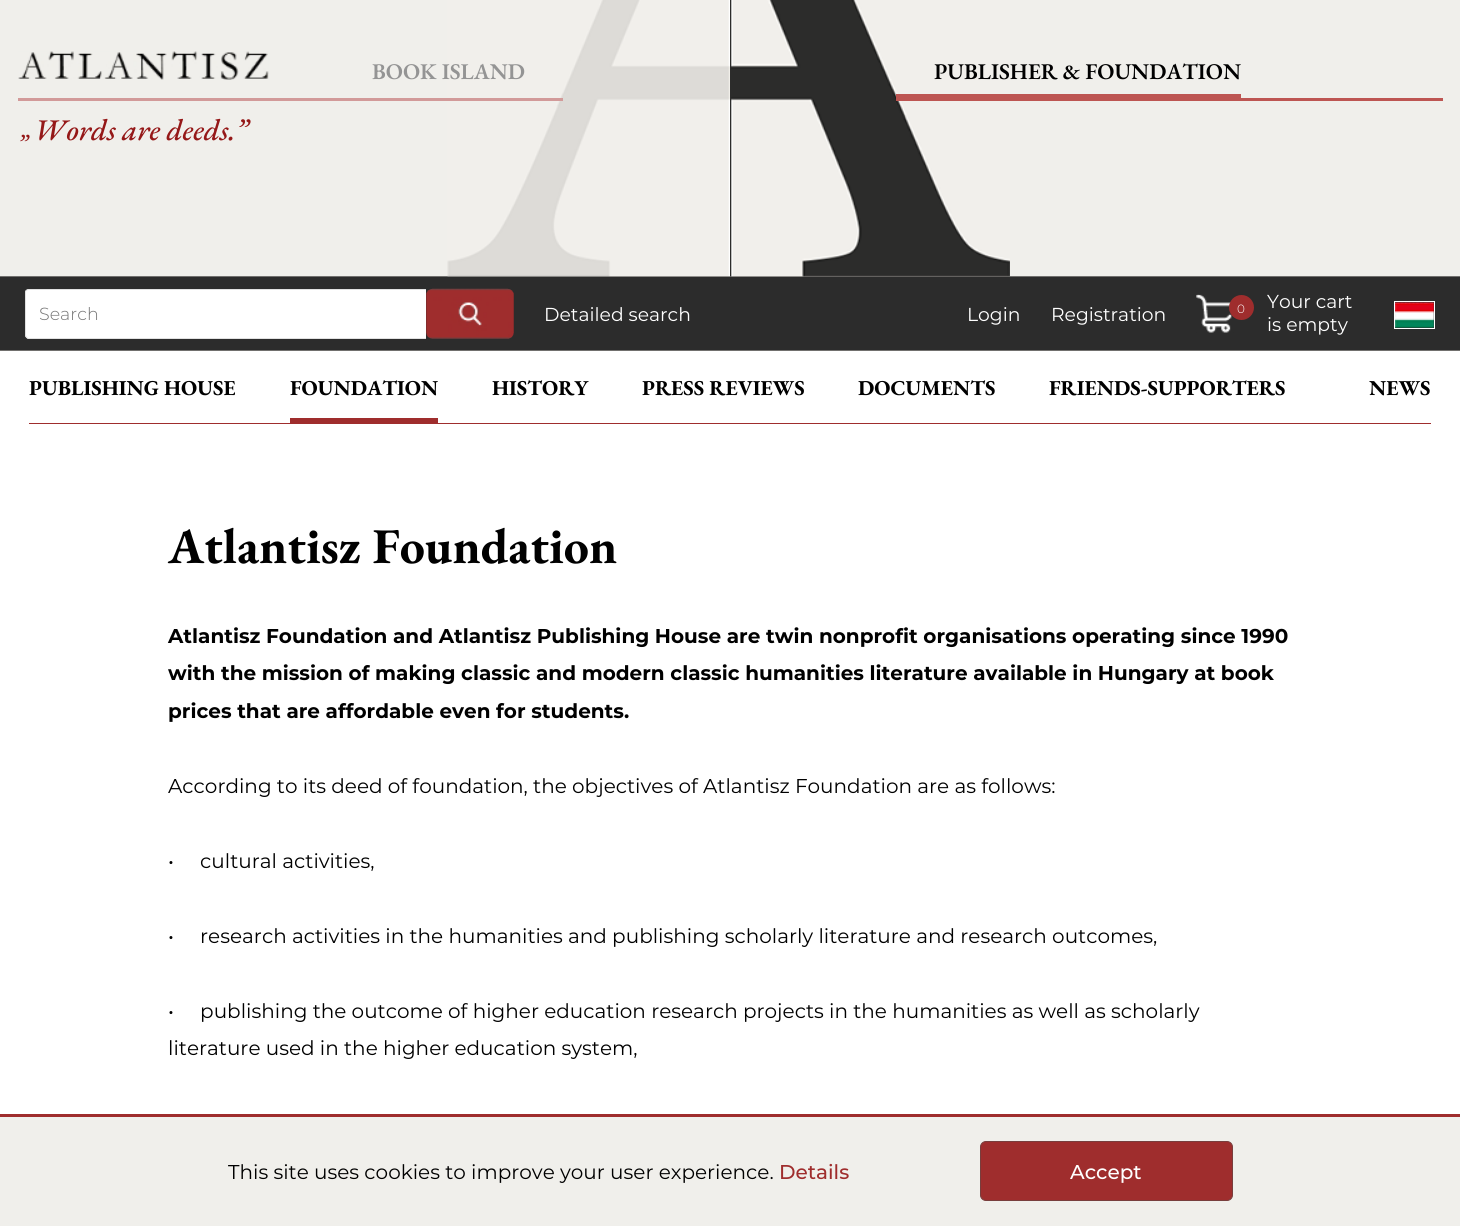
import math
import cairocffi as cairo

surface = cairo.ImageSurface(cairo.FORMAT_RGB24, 1460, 1226)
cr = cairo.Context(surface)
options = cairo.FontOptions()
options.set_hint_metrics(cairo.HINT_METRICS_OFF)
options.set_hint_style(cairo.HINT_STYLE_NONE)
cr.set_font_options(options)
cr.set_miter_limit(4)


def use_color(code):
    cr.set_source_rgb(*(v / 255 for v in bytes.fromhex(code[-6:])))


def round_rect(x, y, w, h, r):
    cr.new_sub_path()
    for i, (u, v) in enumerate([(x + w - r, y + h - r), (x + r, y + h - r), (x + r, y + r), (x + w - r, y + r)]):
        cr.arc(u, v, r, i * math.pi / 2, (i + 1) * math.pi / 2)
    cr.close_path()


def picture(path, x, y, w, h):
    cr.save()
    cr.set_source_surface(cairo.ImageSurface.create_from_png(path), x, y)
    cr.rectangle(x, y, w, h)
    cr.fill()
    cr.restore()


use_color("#ffffff")
cr.paint()
use_color("#f0efeb")
cr.rectangle(0, 0, 448, 276)
cr.fill()
use_color("#71706e")
cr.rectangle(0, 276, 1460, 1)
cr.fill()
picture("img1.png", 447, 0, 283, 277)
use_color("#d29a99")
cr.rectangle(18, 98, 545, 3)
cr.fill()
picture("img2.png", 18, 51, 251, 29)
cr.select_font_face("EB Garamond SemiBold")
cr.set_font_size(22.5)
use_color("#949494")
cr.move_to(372, 79)
cr.show_text("BOOK ISLAND")
cr.select_font_face("EB Garamond Medium", cairo.FONT_SLANT_ITALIC)
cr.set_font_size(25)
use_color("#951818")
cr.move_to(17, 152)
cr.show_text("”")
cr.set_font_size(30)
cr.move_to(34, 140)
cr.show_text("Words are deeds.”")
use_color("#f0efeb")
cr.rectangle(1010, 0, 450, 276)
cr.fill()
picture("img3.png", 730, 0, 280, 277)
use_color("#bd5552")
cr.rectangle(896, 98, 547, 3)
cr.fill()
cr.rectangle(896, 94, 345, 4)
cr.fill()
cr.select_font_face("EB Garamond SemiBold")
cr.set_font_size(22.5)
use_color("#000000")
cr.move_to(934, 79)
cr.show_text("PUBLISHER & FOUNDATION")
use_color("#2c2c2c")
cr.rectangle(0, 277, 1460, 73)
cr.fill()
use_color("#71706e")
cr.rectangle(0, 350, 1460, 1)
cr.fill()
use_color("#ffffff")
cr.new_path()
cr.move_to(29, 289)
cr.line_to(426, 289)
cr.line_to(426, 339)
cr.line_to(29, 339)
cr.curve_to(27, 339, 25, 337, 25, 335)
cr.line_to(25, 293)
cr.curve_to(25, 291, 27, 289, 29, 289)
cr.close_path()
cr.fill()
use_color("#e1e1e1")
cr.set_fill_rule(cairo.FILL_RULE_EVEN_ODD)
cr.new_path()
cr.move_to(29, 289)
cr.line_to(426, 289)
cr.line_to(426, 339)
cr.line_to(29, 339)
cr.curve_to(27, 339, 25, 337, 25, 335)
cr.line_to(25, 292)
cr.curve_to(25, 290, 27, 289, 29, 289)
cr.close_path()
cr.move_to(29, 290)
cr.line_to(426, 290)
cr.line_to(426, 338)
cr.line_to(29, 338)
cr.curve_to(27, 338, 26, 336, 26, 335)
cr.line_to(26, 292)
cr.curve_to(26, 291, 27, 290, 29, 290)
cr.close_path()
cr.fill()
cr.select_font_face("Montserrat Light")
cr.set_font_size(17.5)
use_color("#757575")
cr.move_to(39, 320)
cr.show_text("Search")
picture("img4.png", 426, 288, 88, 51)
cr.select_font_face("Montserrat")
cr.set_font_size(18.75)
use_color("#ffffff")
cr.move_to(544, 321)
cr.show_text("Detailed search")
cr.move_to(967, 321)
cr.show_text("Login")
cr.move_to(1051, 321)
cr.show_text("Registration")
picture("img5.png", 1196, 294, 38, 39)
use_color("#9f2d2d")
cr.arc(1241.5, 307.5, 12.5, 0, 2 * math.pi)
cr.fill()
cr.select_font_face("Montserrat Light")
cr.set_font_size(12)
use_color("#ffffff")
cr.move_to(1237, 313)
cr.show_text("0")
cr.select_font_face("Montserrat")
cr.set_font_size(18.75)
cr.move_to(1267, 308)
cr.show_text("Your cart")
cr.move_to(1267, 331)
cr.show_text("is empty")
picture("img6.png", 1395, 302, 39, 26)
cr.rectangle(1394.5, 301.5, 40, 27)
cr.set_line_width(1)
cr.stroke()
use_color("#9f2d2d")
cr.rectangle(29, 423, 1402, 1)
cr.fill()
cr.select_font_face("EB Garamond", cairo.FONT_SLANT_NORMAL, cairo.FONT_WEIGHT_BOLD)
cr.set_font_size(21.25)
use_color("#000000")
cr.move_to(29, 395)
cr.show_text("PUBLISHING HOUSE")
use_color("#9f2d2d")
cr.rectangle(290, 418, 148, 5)
cr.fill()
use_color("#000000")
cr.move_to(290, 395)
cr.show_text("FOUNDATION")
cr.move_to(492, 395)
cr.show_text("HISTORY")
cr.move_to(642, 395)
cr.show_text("PRESS REVIEWS")
cr.move_to(858, 395)
cr.show_text("DOCUMENTS")
cr.move_to(1049, 395)
cr.show_text("FRIENDS-SUPPORTERS")
cr.move_to(1369, 395)
cr.show_text("NEWS")
cr.set_font_size(50)
cr.move_to(168, 563)
cr.show_text("Atlantisz Foundation")
cr.select_font_face("Montserrat", cairo.FONT_SLANT_NORMAL, cairo.FONT_WEIGHT_BOLD)
cr.set_font_size(20)
cr.move_to(168, 643)
cr.show_text("Atlantisz Foundation and Atlantisz Publishing House are twin nonprofit organisations operating since 1990")
cr.move_to(168, 680)
cr.show_text("with the mission of making classic and modern classic humanities literature available in Hungary at book")
cr.move_to(168, 718)
cr.show_text("prices that are affordable even for students.")
cr.select_font_face("Montserrat")
cr.move_to(168, 793)
cr.show_text("According to its deed of foundation, the objectives of Atlantisz Foundation are as follows:")
cr.move_to(168, 868)
cr.show_text("•     cultural activities,")
cr.move_to(168, 943)
cr.show_text("•     research activities in the humanities and publishing scholarly literature and research outcomes,")
cr.move_to(168, 1018)
cr.show_text("•     publishing the outcome of higher education research projects in the humanities as well as scholarly")
cr.move_to(168, 1055)
cr.show_text("literature used in the higher education system,")
use_color("#f0efeb")
cr.rectangle(0, 1117, 1460, 109)
cr.fill()
use_color("#9f2d2d")
cr.rectangle(0, 1114, 1460, 3)
cr.fill()
use_color("#000000")
cr.move_to(228, 1179)
cr.show_text("This site uses cookies to improve your user experience.")
cr.select_font_face("Montserrat Medium")
use_color("#9f2d2d")
cr.move_to(779, 1179)
cr.show_text("Details")
round_rect(980.5, 1141.5, 252, 59, 5.5)
cr.fill_preserve()
use_color("#783e3d")
cr.stroke()
use_color("#ffffff")
cr.move_to(1070, 1179)
cr.show_text("Accept")
surface.write_to_png("result.png")
